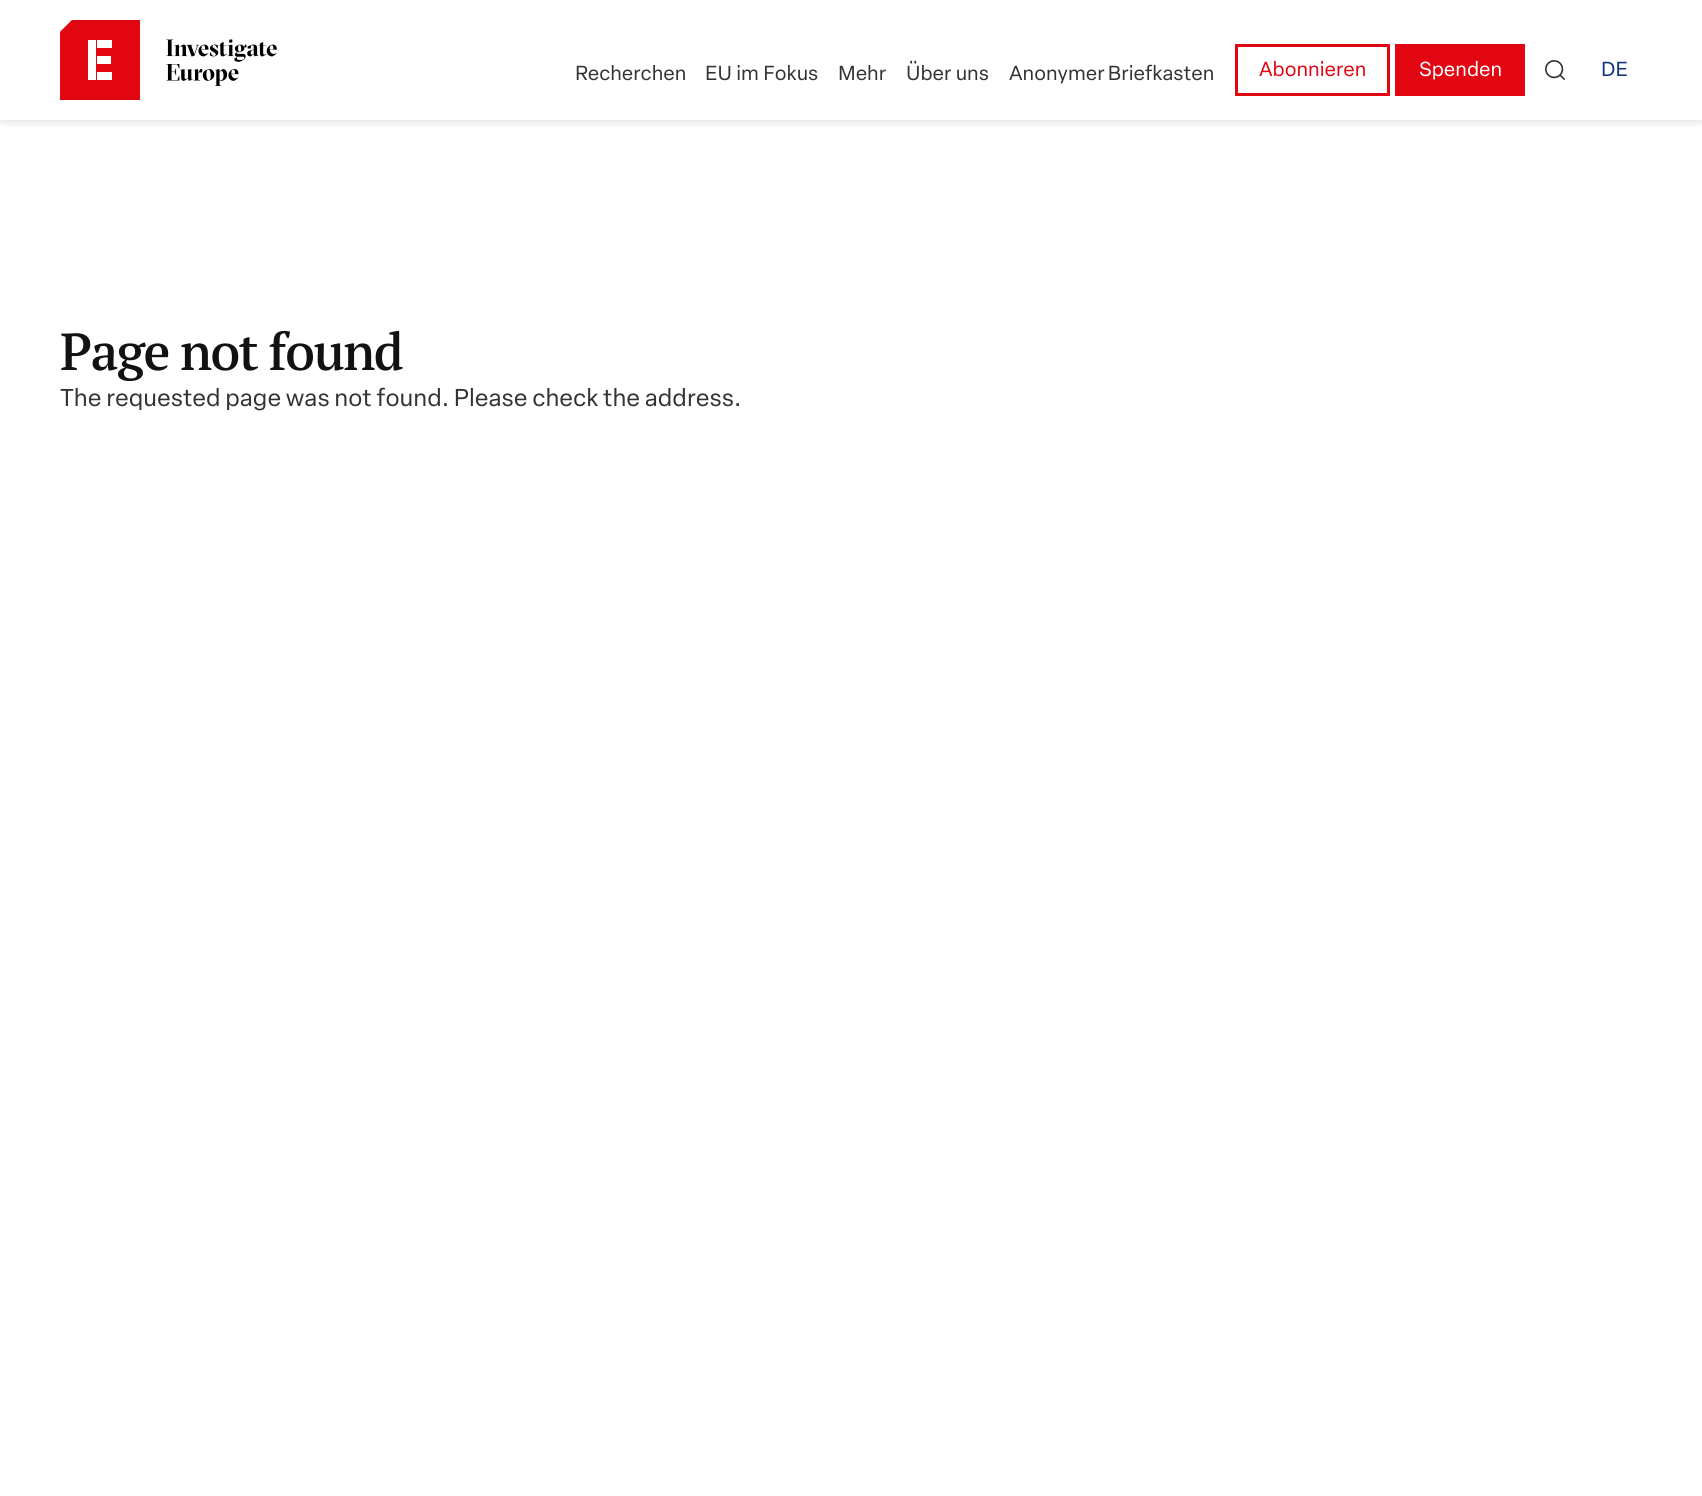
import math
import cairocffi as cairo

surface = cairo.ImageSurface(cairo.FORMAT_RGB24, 1702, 1496)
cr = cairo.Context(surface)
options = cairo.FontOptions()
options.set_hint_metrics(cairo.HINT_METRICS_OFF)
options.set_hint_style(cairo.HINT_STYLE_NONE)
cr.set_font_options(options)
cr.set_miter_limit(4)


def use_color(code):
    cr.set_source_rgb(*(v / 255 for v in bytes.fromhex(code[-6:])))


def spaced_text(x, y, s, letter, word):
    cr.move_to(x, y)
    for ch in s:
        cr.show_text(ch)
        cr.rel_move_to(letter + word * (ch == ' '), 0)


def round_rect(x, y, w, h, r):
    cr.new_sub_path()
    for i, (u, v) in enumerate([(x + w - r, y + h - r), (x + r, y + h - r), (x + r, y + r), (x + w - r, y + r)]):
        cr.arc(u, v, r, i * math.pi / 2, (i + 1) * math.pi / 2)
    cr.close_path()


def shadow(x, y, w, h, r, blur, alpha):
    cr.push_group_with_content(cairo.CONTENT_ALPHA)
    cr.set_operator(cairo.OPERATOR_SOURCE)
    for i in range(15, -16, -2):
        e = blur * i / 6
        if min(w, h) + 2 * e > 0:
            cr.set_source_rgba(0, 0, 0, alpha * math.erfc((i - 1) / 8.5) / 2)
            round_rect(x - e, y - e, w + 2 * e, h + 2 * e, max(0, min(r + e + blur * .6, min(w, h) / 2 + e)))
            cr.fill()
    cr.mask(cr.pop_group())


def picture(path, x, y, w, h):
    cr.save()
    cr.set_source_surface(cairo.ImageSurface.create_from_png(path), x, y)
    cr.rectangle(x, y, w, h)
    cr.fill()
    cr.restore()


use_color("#ffffff")
cr.paint()
cr.save()
cr.rectangle(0, 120, 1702, 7)
cr.clip()
use_color("#121212")
shadow(0, 4, 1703, 120, 0, 4, 0.09)
cr.restore()
picture("img1.png", 60, 20, 217, 80)
cr.select_font_face("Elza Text")
cr.set_font_size(20)
use_color("#333333")
cr.move_to(575, 80)
cr.show_text("Recherchen")
cr.move_to(705, 80)
cr.show_text("EU im Fokus")
cr.move_to(838, 80)
cr.show_text("Mehr")
cr.move_to(906, 80)
cr.show_text("Über uns")
spaced_text(1009, 80, "Anonymer Briefkasten", 0, -1)
cr.rectangle(1236.5, 45.5, 152, 49)
use_color("#e20613")
cr.set_line_width(3)
cr.stroke()
cr.move_to(1259, 76)
cr.show_text("Abonnieren")
cr.rectangle(1395, 44, 130, 52)
cr.fill()
use_color("#ffffff")
cr.move_to(1419, 76)
cr.show_text("Spenden")
picture("img2.png", 1545, 60, 20, 20)
use_color("#0e3177")
cr.move_to(1601, 76)
cr.show_text("DE")
cr.select_font_face("PT Serif SemiBold")
cr.set_font_size(52)
use_color("#121212")
spaced_text(60, 370, "Page not found", -1.4, -1)
cr.select_font_face("Elza Text")
cr.set_font_size(24)
use_color("#333333")
spaced_text(60, 406, "The requested page was not found. Please check the address.", 0, -0.5)
surface.write_to_png("result.png")
